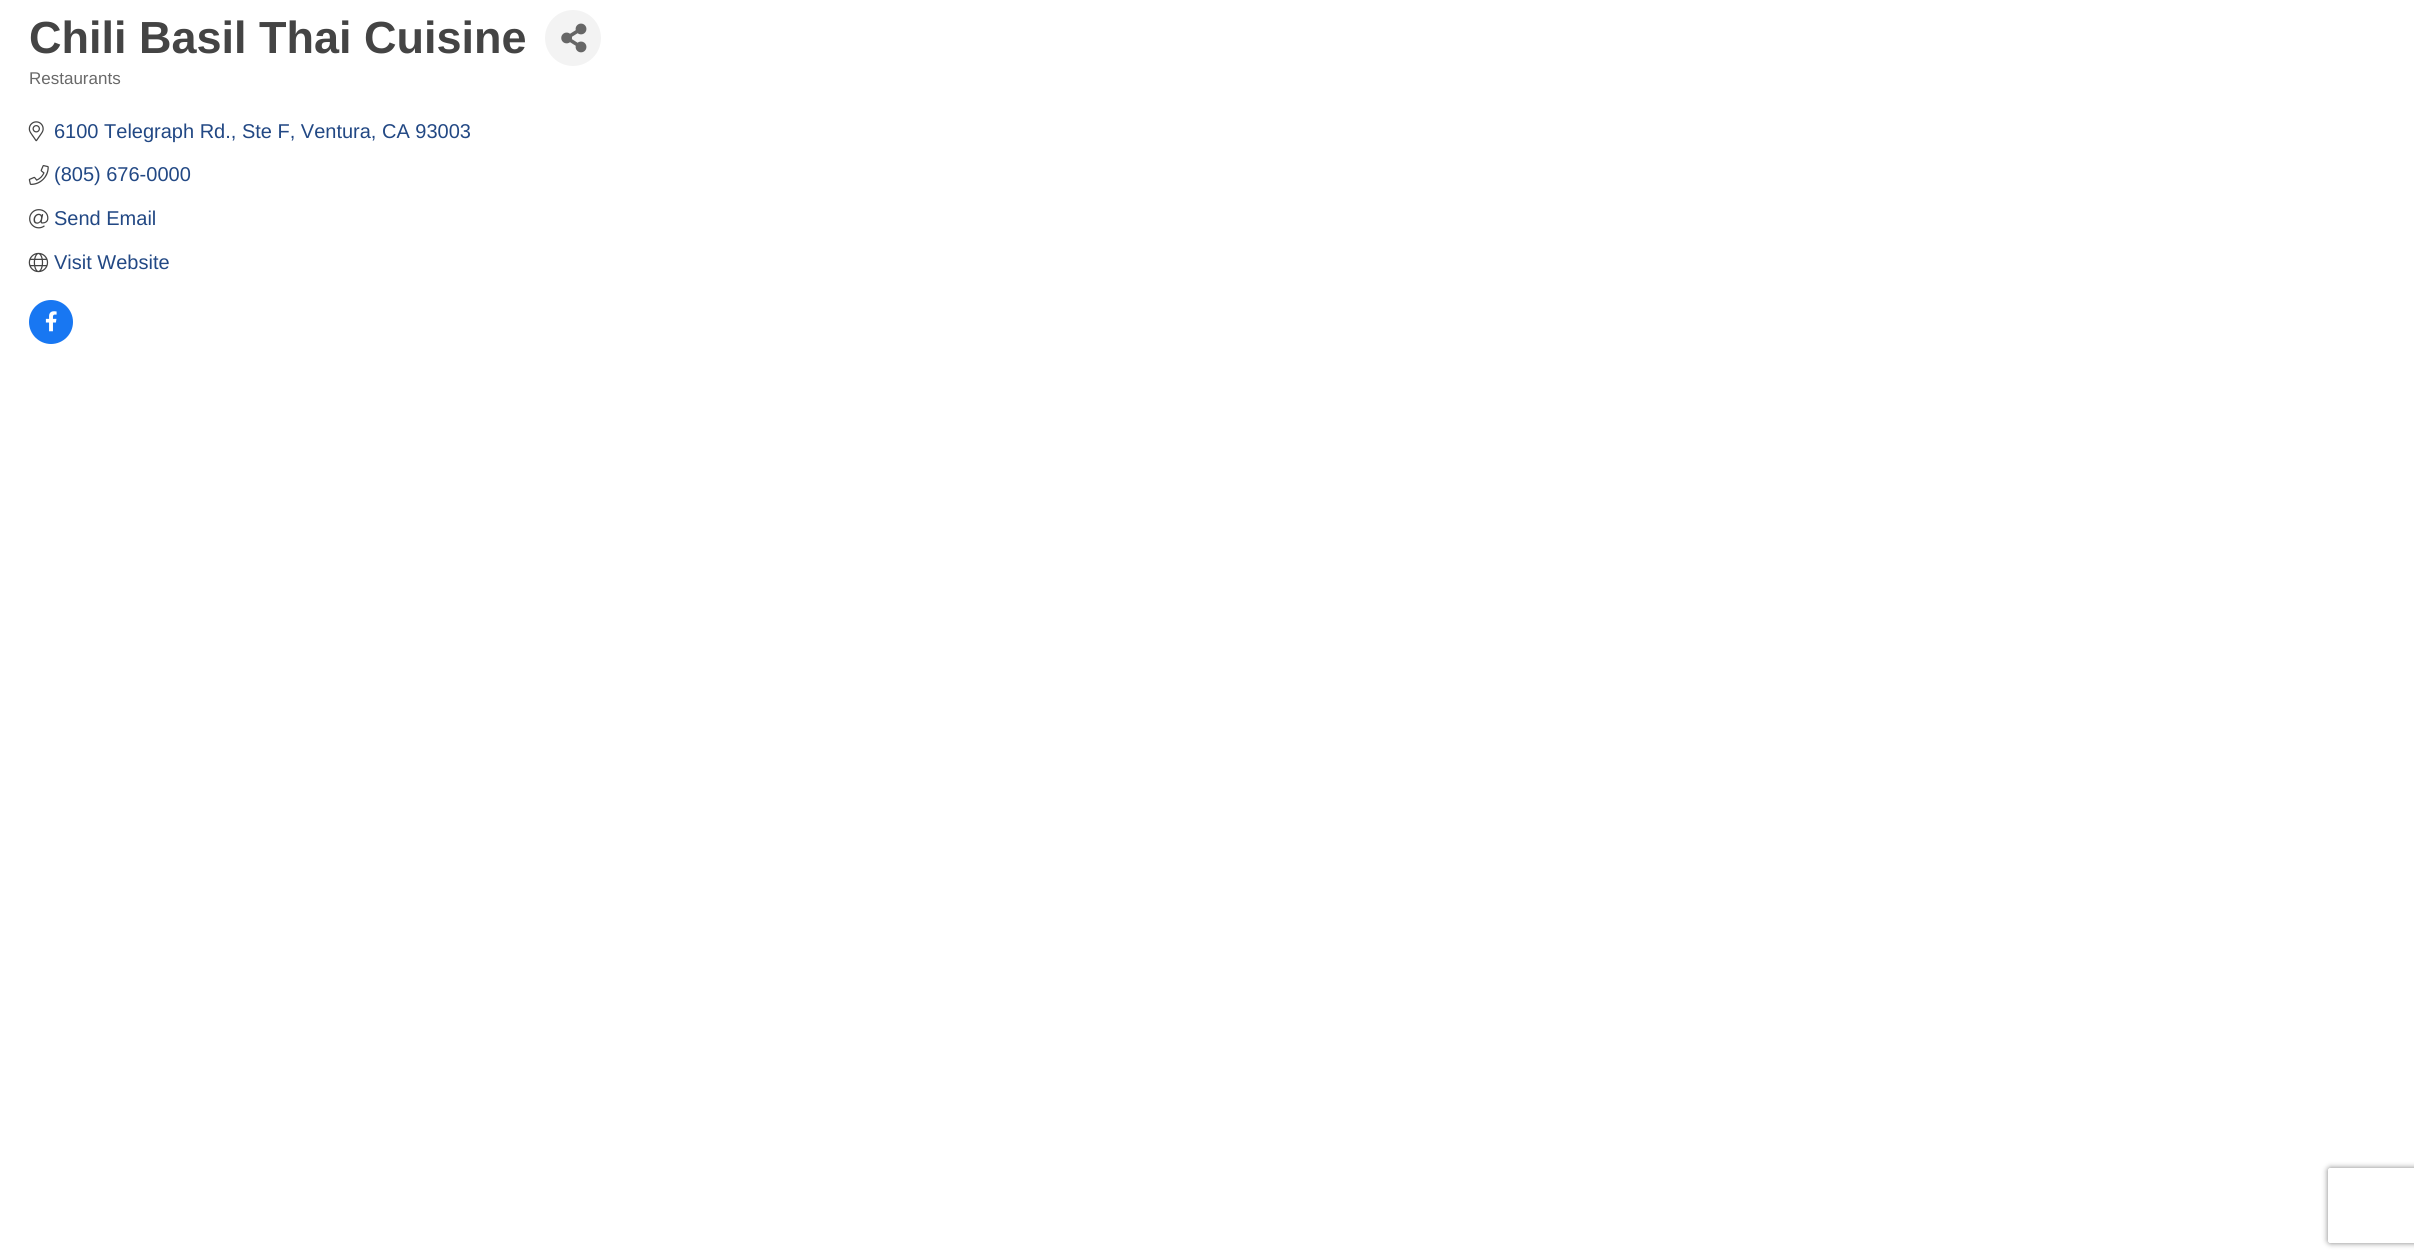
import math
import cairocffi as cairo

surface = cairo.ImageSurface(cairo.FORMAT_RGB24, 2414, 1260)
cr = cairo.Context(surface)
options = cairo.FontOptions()
options.set_hint_metrics(cairo.HINT_METRICS_OFF)
options.set_hint_style(cairo.HINT_STYLE_NONE)
cr.set_font_options(options)
cr.set_miter_limit(4)


def use_color(code):
    cr.set_source_rgb(*(v / 255 for v in bytes.fromhex(code[-6:])))


def round_rect(x, y, w, h, r):
    cr.new_sub_path()
    for i, (u, v) in enumerate([(x + w - r, y + h - r), (x + r, y + h - r), (x + r, y + r), (x + w - r, y + r)]):
        cr.arc(u, v, r, i * math.pi / 2, (i + 1) * math.pi / 2)
    cr.close_path()


def shadow(x, y, w, h, r, blur, alpha):
    cr.push_group_with_content(cairo.CONTENT_ALPHA)
    cr.set_operator(cairo.OPERATOR_SOURCE)
    for i in range(15, -16, -2):
        e = blur * i / 6
        if min(w, h) + 2 * e > 0:
            cr.set_source_rgba(0, 0, 0, alpha * math.erfc((i - 1) / 8.5) / 2)
            round_rect(x - e, y - e, w + 2 * e, h + 2 * e, max(0, min(r + e + blur * .6, min(w, h) / 2 + e)))
            cr.fill()
    cr.mask(cr.pop_group())


def picture(path, x, y, w, h):
    cr.save()
    cr.set_source_surface(cairo.ImageSurface.create_from_png(path), x, y)
    cr.rectangle(x, y, w, h)
    cr.fill()
    cr.restore()


use_color("#ffffff")
cr.paint()
cr.select_font_face("Liberation Sans", cairo.FONT_SLANT_NORMAL, cairo.FONT_WEIGHT_BOLD)
cr.set_font_size(45)
use_color("#444444")
cr.move_to(29, 53)
cr.show_text("Chili Basil Thai Cuisine")
use_color("#f3f3f3")
cr.new_path()
cr.arc(573, 38, 28, 0, 2 * math.pi)
cr.fill()
picture("img1.png", 561, 23, 26, 30)
cr.select_font_face("Liberation Sans")
cr.set_font_size(17)
use_color("#696969")
cr.move_to(29, 84)
cr.show_text("Restaurants")
picture("img2.png", 28, 121, 16, 21)
cr.set_font_size(20)
use_color("#224884")
cr.move_to(54, 138)
cr.show_text("6100 Telegraph Rd., Ste F, Ventura, CA 93003")
picture("img3.png", 28, 165, 21, 20)
cr.move_to(54, 181)
cr.show_text("(805) 676-0000")
picture("img4.png", 29, 209, 20, 20)
cr.move_to(54, 225)
cr.show_text("Send Email")
picture("img5.png", 28, 252, 21, 21)
cr.move_to(54, 269)
cr.show_text("Visit Website")
use_color("#1877f2")
cr.new_path()
cr.arc(51, 322, 22, 0, 2 * math.pi)
cr.fill()
picture("img6.png", 45, 311, 12, 21)
cr.save()
cr.set_fill_rule(cairo.FILL_RULE_EVEN_ODD)
cr.new_path()
cr.move_to(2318, 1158)
cr.line_to(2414, 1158)
cr.line_to(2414, 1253)
cr.line_to(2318, 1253)
cr.close_path()
cr.move_to(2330.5, 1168)
cr.line_to(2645.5, 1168)
cr.curve_to(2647, 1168, 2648, 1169, 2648, 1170.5)
cr.line_to(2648, 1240.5)
cr.curve_to(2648, 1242, 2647, 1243, 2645.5, 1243)
cr.line_to(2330.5, 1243)
cr.curve_to(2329, 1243, 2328, 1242, 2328, 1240.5)
cr.line_to(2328, 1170.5)
cr.curve_to(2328, 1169, 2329, 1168, 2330.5, 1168)
cr.close_path()
cr.clip()
use_color("#808080")
shadow(2328, 1168, 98, 75, 2.5, 3, 1)
cr.restore()
surface.write_to_png("result.png")
